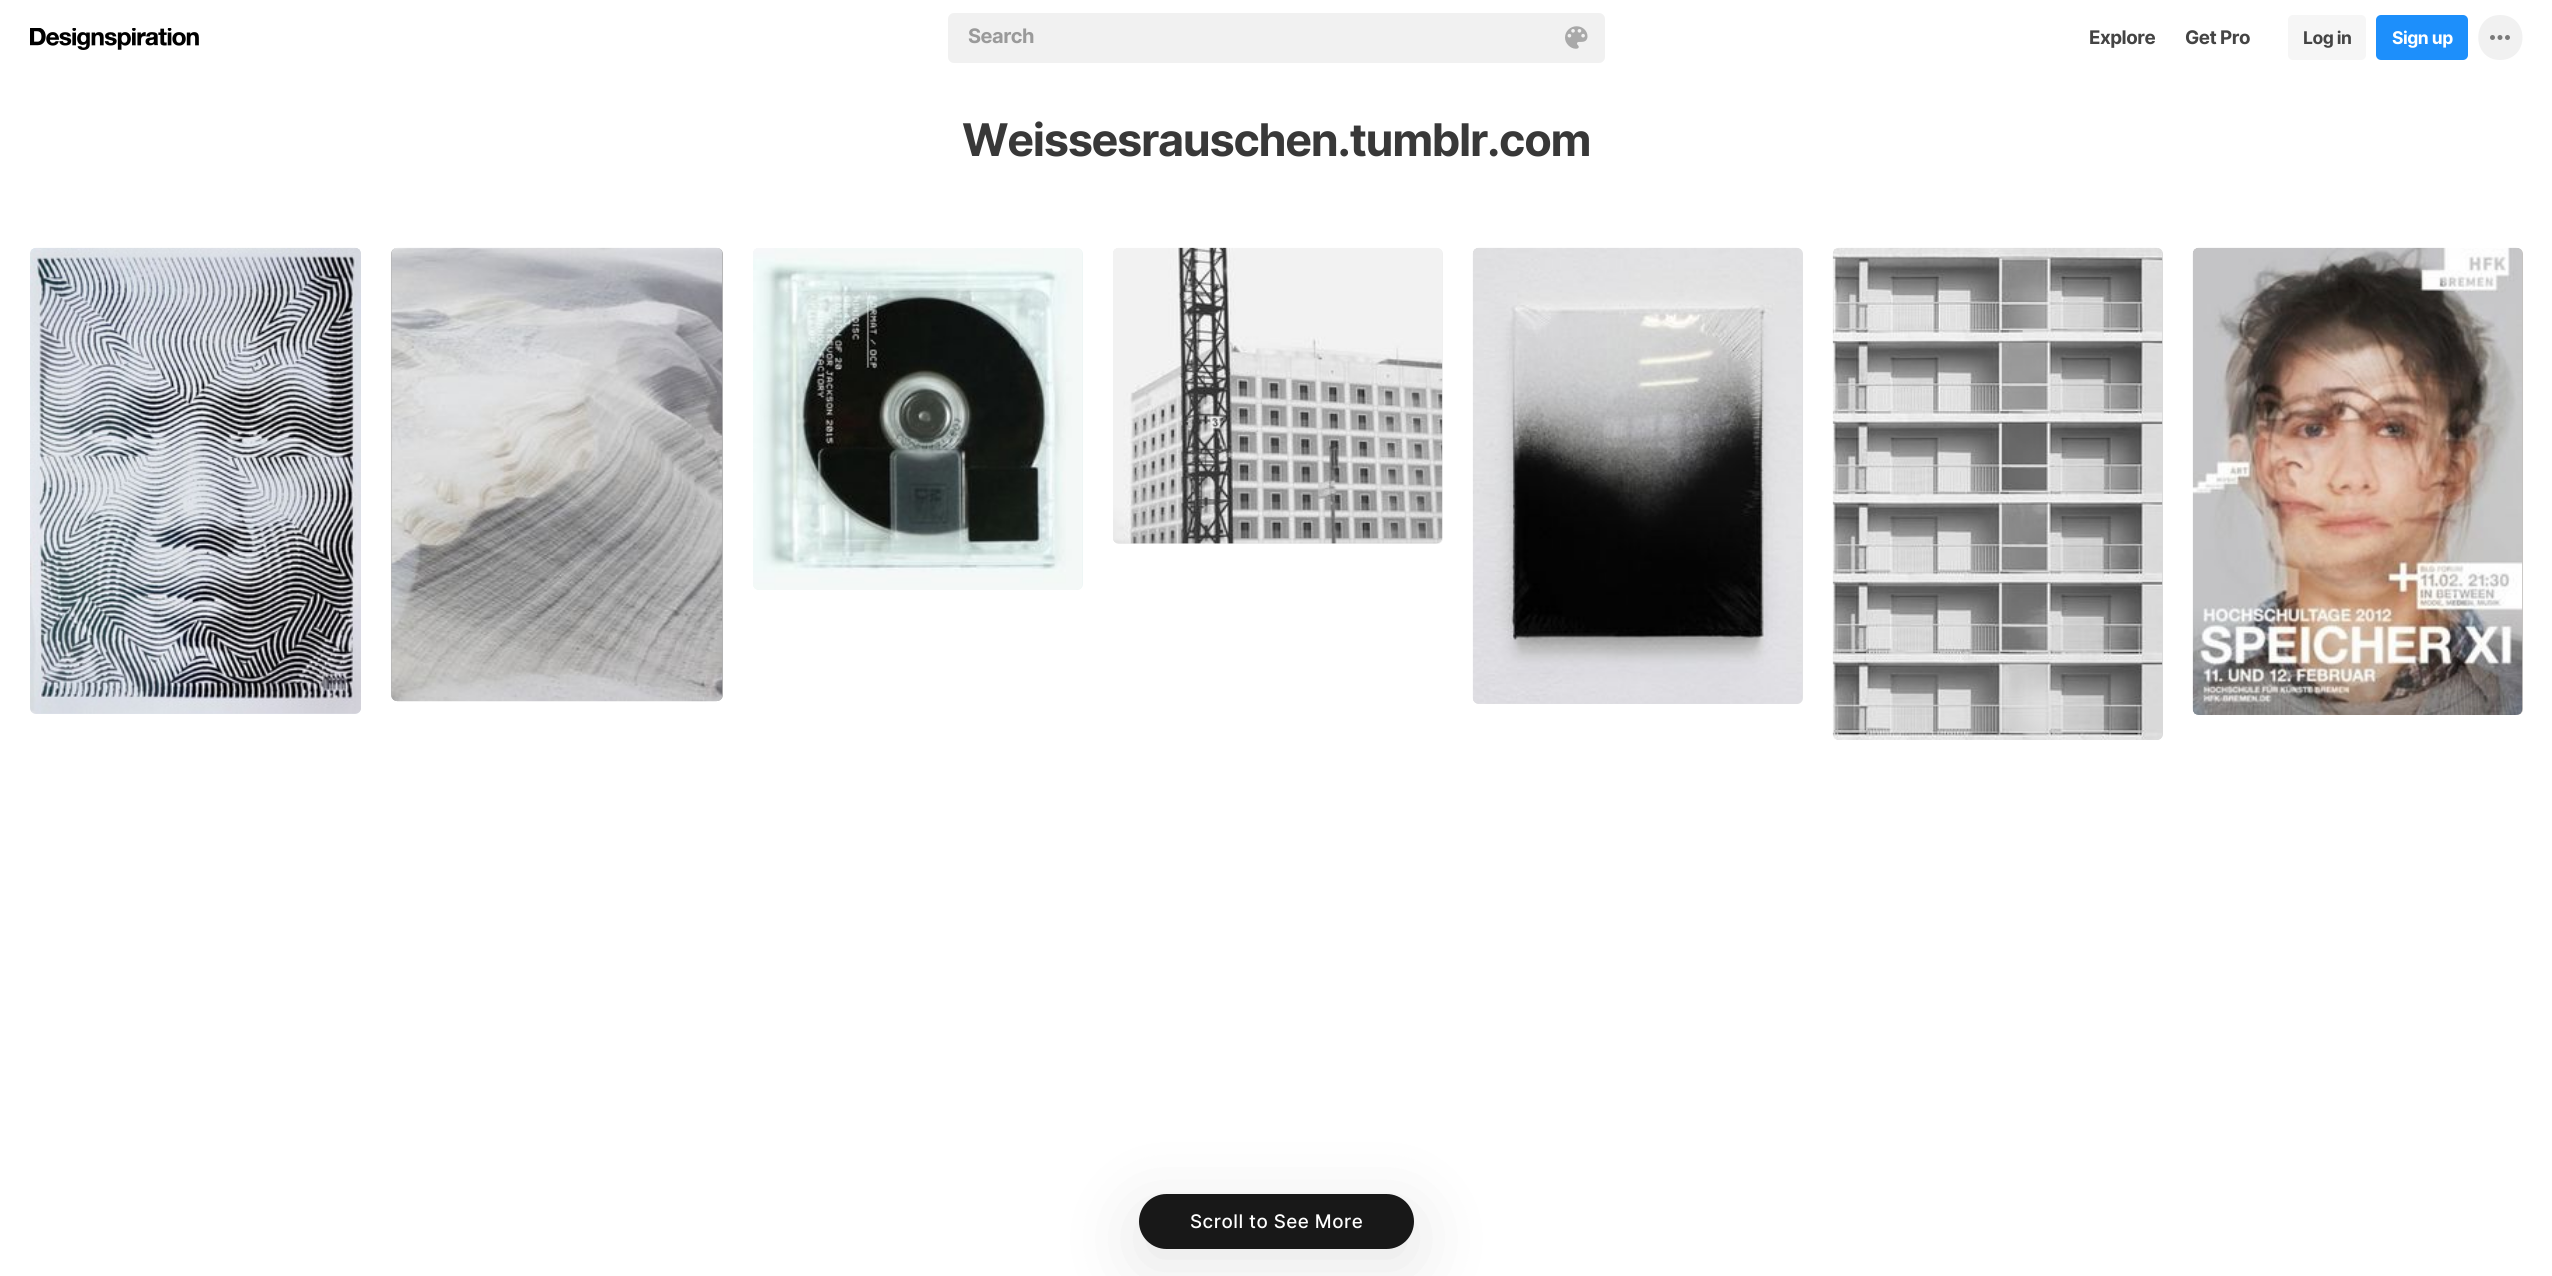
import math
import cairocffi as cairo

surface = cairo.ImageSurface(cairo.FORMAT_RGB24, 2552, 1276)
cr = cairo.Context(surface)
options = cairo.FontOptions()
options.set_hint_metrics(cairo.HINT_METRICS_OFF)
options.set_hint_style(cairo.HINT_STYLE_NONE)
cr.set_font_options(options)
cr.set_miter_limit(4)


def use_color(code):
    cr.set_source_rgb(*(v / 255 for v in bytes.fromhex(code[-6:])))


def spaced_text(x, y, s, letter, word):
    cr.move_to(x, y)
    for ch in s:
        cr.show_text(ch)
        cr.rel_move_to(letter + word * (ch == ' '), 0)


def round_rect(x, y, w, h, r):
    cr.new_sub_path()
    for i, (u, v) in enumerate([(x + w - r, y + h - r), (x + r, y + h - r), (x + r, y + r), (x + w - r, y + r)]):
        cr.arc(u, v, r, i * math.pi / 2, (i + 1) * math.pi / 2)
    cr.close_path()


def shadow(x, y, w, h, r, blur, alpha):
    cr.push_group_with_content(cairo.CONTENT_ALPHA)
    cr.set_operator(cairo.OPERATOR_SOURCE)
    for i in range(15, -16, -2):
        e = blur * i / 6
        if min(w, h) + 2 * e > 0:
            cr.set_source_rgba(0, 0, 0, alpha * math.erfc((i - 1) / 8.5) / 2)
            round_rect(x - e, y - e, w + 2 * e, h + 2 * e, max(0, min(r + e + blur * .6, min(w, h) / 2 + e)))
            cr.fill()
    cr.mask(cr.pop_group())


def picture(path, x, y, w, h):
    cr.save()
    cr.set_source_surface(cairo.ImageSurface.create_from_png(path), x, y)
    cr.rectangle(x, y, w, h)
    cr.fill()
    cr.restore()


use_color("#ffffff")
cr.paint()
picture("img1.png", 30, 28, 169, 22)
use_color("#f1f1f1")
round_rect(948, 13, 657, 50, 6)
cr.fill()
cr.select_font_face("Inter", cairo.FONT_SLANT_NORMAL, cairo.FONT_WEIGHT_BOLD)
cr.set_font_size(20)
use_color("#9a9a9a")
spaced_text(968, 43, "Search", -0.5, 0)
picture("img2.png", 1565, 26, 23, 23)
cr.set_font_size(18.75)
use_color("#444444")
spaced_text(2089, 44, "Explore", -0.5, 0)
spaced_text(2185, 44, "Get Pro", -0.5, 0)
use_color("#f6f6f6")
round_rect(2288, 15, 78, 45, 5)
cr.fill()
cr.set_font_size(17.5)
use_color("#444444")
spaced_text(2303, 44, "Log in", -0.5, 0)
use_color("#1d8ffb")
round_rect(2376, 15, 92, 45, 5)
cr.fill()
use_color("#ffffff")
spaced_text(2392, 44, "Sign up", -0.5, 0)
use_color("#f1f1f1")
cr.new_path()
cr.move_to(2500, 15)
cr.curve_to(2530, 15, 2530, 60, 2500, 60)
cr.curve_to(2471, 60, 2471, 15, 2500, 15)
cr.close_path()
cr.fill()
picture("img3.png", 2490, 35, 20, 5)
cr.set_font_size(45)
use_color("#383838")
spaced_text(962, 156, "Weissesrauschen.tumblr.com", -1.35, 0)
use_color("#e3e7ee")
round_rect(30, 248, 331, 466, 6)
cr.fill()
picture("img4.png", 30, 247, 331, 467)
use_color("#b1b1b1")
round_rect(391, 248, 332, 453, 6)
cr.fill()
picture("img5.png", 391, 247, 332, 455)
use_color("#eef6f5")
round_rect(753, 248, 330, 342, 6)
cr.fill()
picture("img6.png", 753, 248, 329, 342)
use_color("#efefef")
round_rect(1113, 248, 330, 296, 6)
cr.fill()
picture("img7.png", 1113, 247, 330, 297)
use_color("#e1e1e3")
round_rect(1473, 248, 330, 456, 6)
cr.fill()
picture("img8.png", 1472, 247, 330, 457)
use_color("#d9d9d9")
round_rect(1833, 248, 330, 492, 6)
cr.fill()
picture("img9.png", 1832, 247, 331, 493)
use_color("#c5c1bf")
round_rect(2193, 248, 330, 467, 6)
cr.fill()
picture("img10.png", 2192, 247, 331, 468)
use_color("#000000")
shadow(1139, 1211, 275, 55, 27.5, 37.5, 0.1)
use_color("#181818")
round_rect(1139, 1194, 275, 55, 27.5)
cr.fill()
cr.select_font_face("Inter Medium")
cr.set_font_size(18.75)
use_color("#ffffff")
spaced_text(1190, 1228, "Scroll to See More", 0.5, 0)
surface.write_to_png("result.png")
